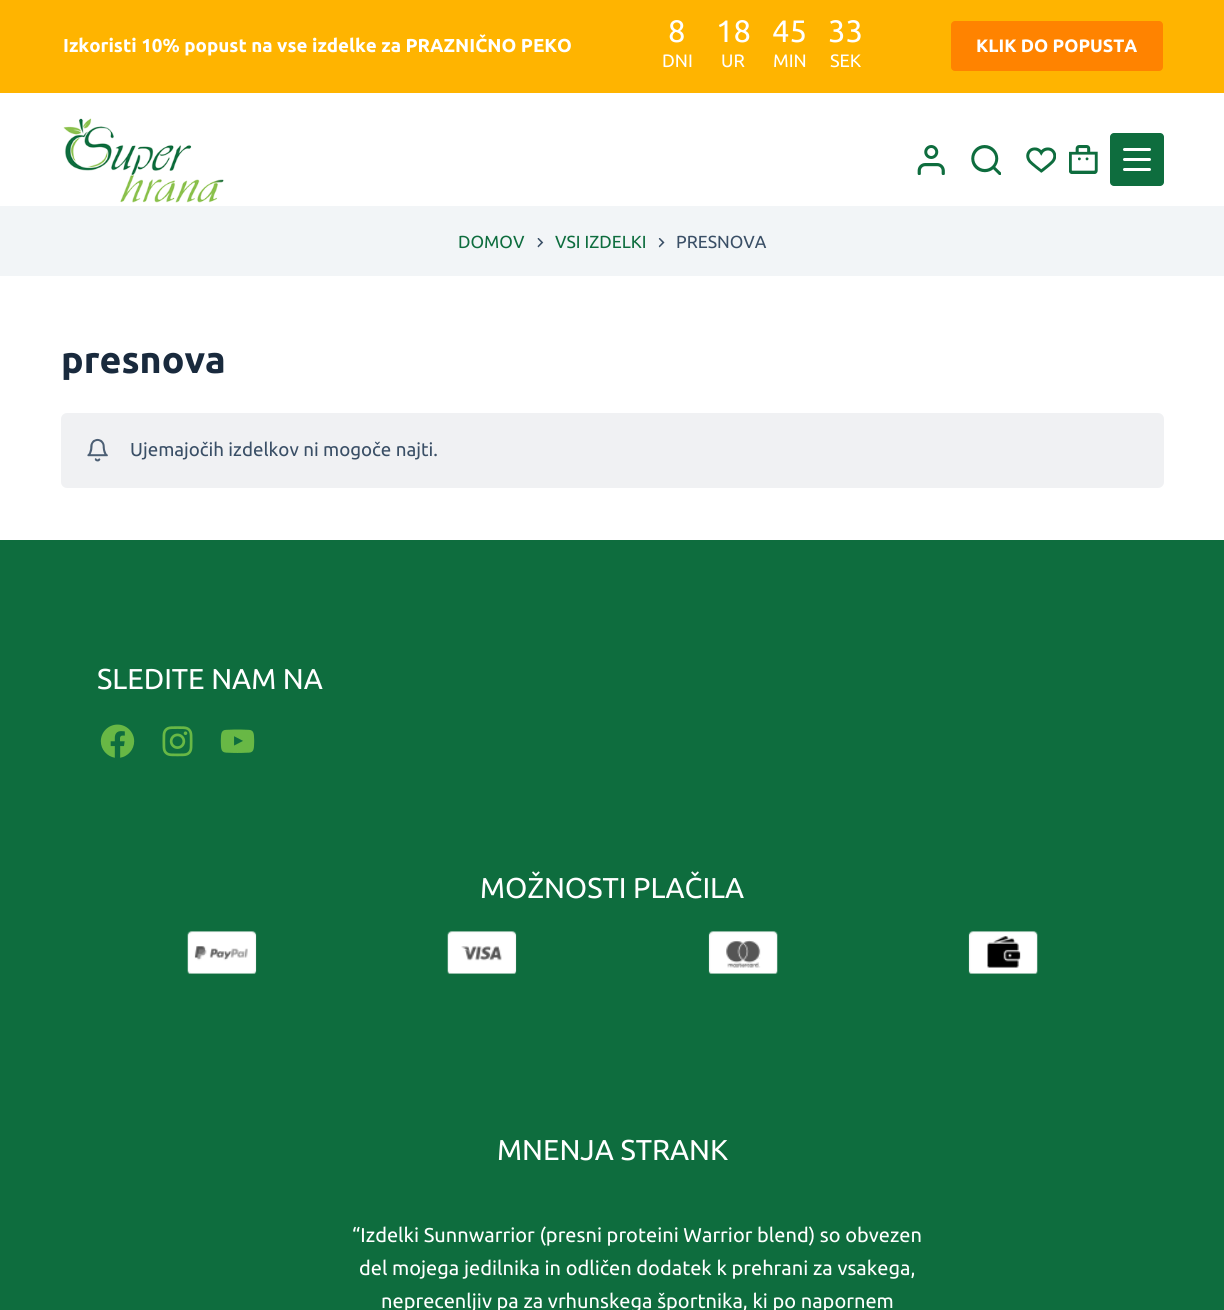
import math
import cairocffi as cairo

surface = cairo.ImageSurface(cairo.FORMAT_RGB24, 1224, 1310)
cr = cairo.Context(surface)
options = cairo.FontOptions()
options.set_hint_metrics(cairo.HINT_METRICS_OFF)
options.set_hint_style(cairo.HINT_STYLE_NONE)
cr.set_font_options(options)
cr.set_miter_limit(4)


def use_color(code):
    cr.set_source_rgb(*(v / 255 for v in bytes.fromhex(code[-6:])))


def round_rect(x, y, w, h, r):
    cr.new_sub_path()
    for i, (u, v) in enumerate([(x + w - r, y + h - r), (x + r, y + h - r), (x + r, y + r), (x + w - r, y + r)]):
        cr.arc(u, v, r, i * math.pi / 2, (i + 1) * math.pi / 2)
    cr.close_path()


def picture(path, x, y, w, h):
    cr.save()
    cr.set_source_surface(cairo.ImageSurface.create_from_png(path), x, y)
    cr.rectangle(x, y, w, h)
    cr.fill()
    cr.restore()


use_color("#ffffff")
cr.paint()
use_color("#ffb400")
cr.rectangle(0, 0, 1224, 93)
cr.fill()
cr.select_font_face("Ubuntu", cairo.FONT_SLANT_NORMAL, cairo.FONT_WEIGHT_BOLD)
cr.set_font_size(18.75)
use_color("#ffffff")
cr.move_to(63, 52)
cr.show_text("Izkoristi 10% popust na vse izdelke za PRAZNIČNO PEKO")
cr.select_font_face("Ubuntu")
cr.set_font_size(31)
cr.move_to(668, 42)
cr.show_text("8")
cr.set_font_size(18)
cr.move_to(662, 67)
cr.show_text("DNI")
cr.set_font_size(31)
cr.move_to(716, 42)
cr.show_text("18")
cr.set_font_size(18)
cr.move_to(721, 67)
cr.show_text("UR")
cr.set_font_size(31)
cr.move_to(772, 42)
cr.show_text("45")
cr.set_font_size(18)
cr.move_to(773, 67)
cr.show_text("MIN")
cr.set_font_size(31)
cr.move_to(828, 42)
cr.show_text("33")
cr.set_font_size(18)
cr.move_to(830, 67)
cr.show_text("SEK")
use_color("#ff8300")
round_rect(951, 21, 212, 50, 4)
cr.fill()
cr.select_font_face("Ubuntu", cairo.FONT_SLANT_NORMAL, cairo.FONT_WEIGHT_BOLD)
use_color("#ffffff")
cr.move_to(976, 52)
cr.show_text("KLIK DO POPUSTA")
picture("img1.png", 63, 118, 161, 85)
picture("img2.png", 917, 145, 28, 30)
picture("img3.png", 971, 145, 30, 30)
picture("img4.png", 1026, 147, 30, 26)
picture("img5.png", 1069, 145, 29, 29)
use_color("#0e6d3e")
round_rect(1110, 133, 54, 53, 4)
cr.fill()
use_color("#ffffff")
round_rect(1123, 148, 28, 3, 1.5)
cr.fill()
round_rect(1123, 158, 28, 3, 1.5)
cr.fill()
round_rect(1123, 168, 28, 3, 1.5)
cr.fill()
use_color("#f2f5f7")
cr.rectangle(0, 206, 1224, 70)
cr.fill()
cr.select_font_face("Ubuntu")
cr.set_font_size(17.5)
use_color("#0e6d3e")
cr.move_to(458, 248)
cr.show_text("DOMOV")
picture("img6.png", 537, 238, 7, 10)
cr.move_to(555, 248)
cr.show_text("VSI IZDELKI")
picture("img7.png", 658, 238, 7, 10)
use_color("#3a4f66")
cr.move_to(676, 248)
cr.show_text("PRESNOVA")
cr.select_font_face("Ubuntu", cairo.FONT_SLANT_NORMAL, cairo.FONT_WEIGHT_BOLD)
cr.set_font_size(37.5)
use_color("#192a3d")
cr.move_to(61, 373)
cr.show_text("presnova")
use_color("#f0f1f3")
round_rect(61, 413, 1103, 75, 6)
cr.fill()
picture("img8.png", 87, 438, 21, 24)
cr.select_font_face("Ubuntu")
cr.set_font_size(18.75)
use_color("#3a4f66")
cr.move_to(130, 456)
cr.show_text("Ujemajočih izdelkov ni mogoče najti.")
use_color("#0e6d3e")
cr.rectangle(0, 540, 1224, 770)
cr.fill()
cr.set_font_size(28.75)
use_color("#ffffff")
cr.move_to(97, 689)
cr.show_text("SLEDITE NAM NA")
picture("img9.png", 100, 724, 35, 34)
picture("img10.png", 162, 726, 31, 31)
picture("img11.png", 220, 729, 35, 24)
cr.move_to(480, 898)
cr.show_text("MOŽNOSTI PLAČILA")
picture("img12.png", 187, 931, 70, 43)
picture("img13.png", 447, 931, 70, 43)
picture("img14.png", 708, 931, 70, 43)
picture("img15.png", 968, 931, 70, 43)
cr.move_to(497, 1160)
cr.show_text("MNENJA STRANK")
cr.set_font_size(20)
cr.move_to(352, 1242)
cr.show_text("“Izdelki Sunnwarrior (presni proteini Warrior blend) so obvezen")
cr.move_to(359, 1275)
cr.show_text("del mojega jedilnika in odličen dodatek k prehrani za vsakega,")
cr.move_to(381, 1308)
cr.show_text("neprecenljiv pa za vrhunskega športnika, ki po napornem")
surface.write_to_png("result.png")
